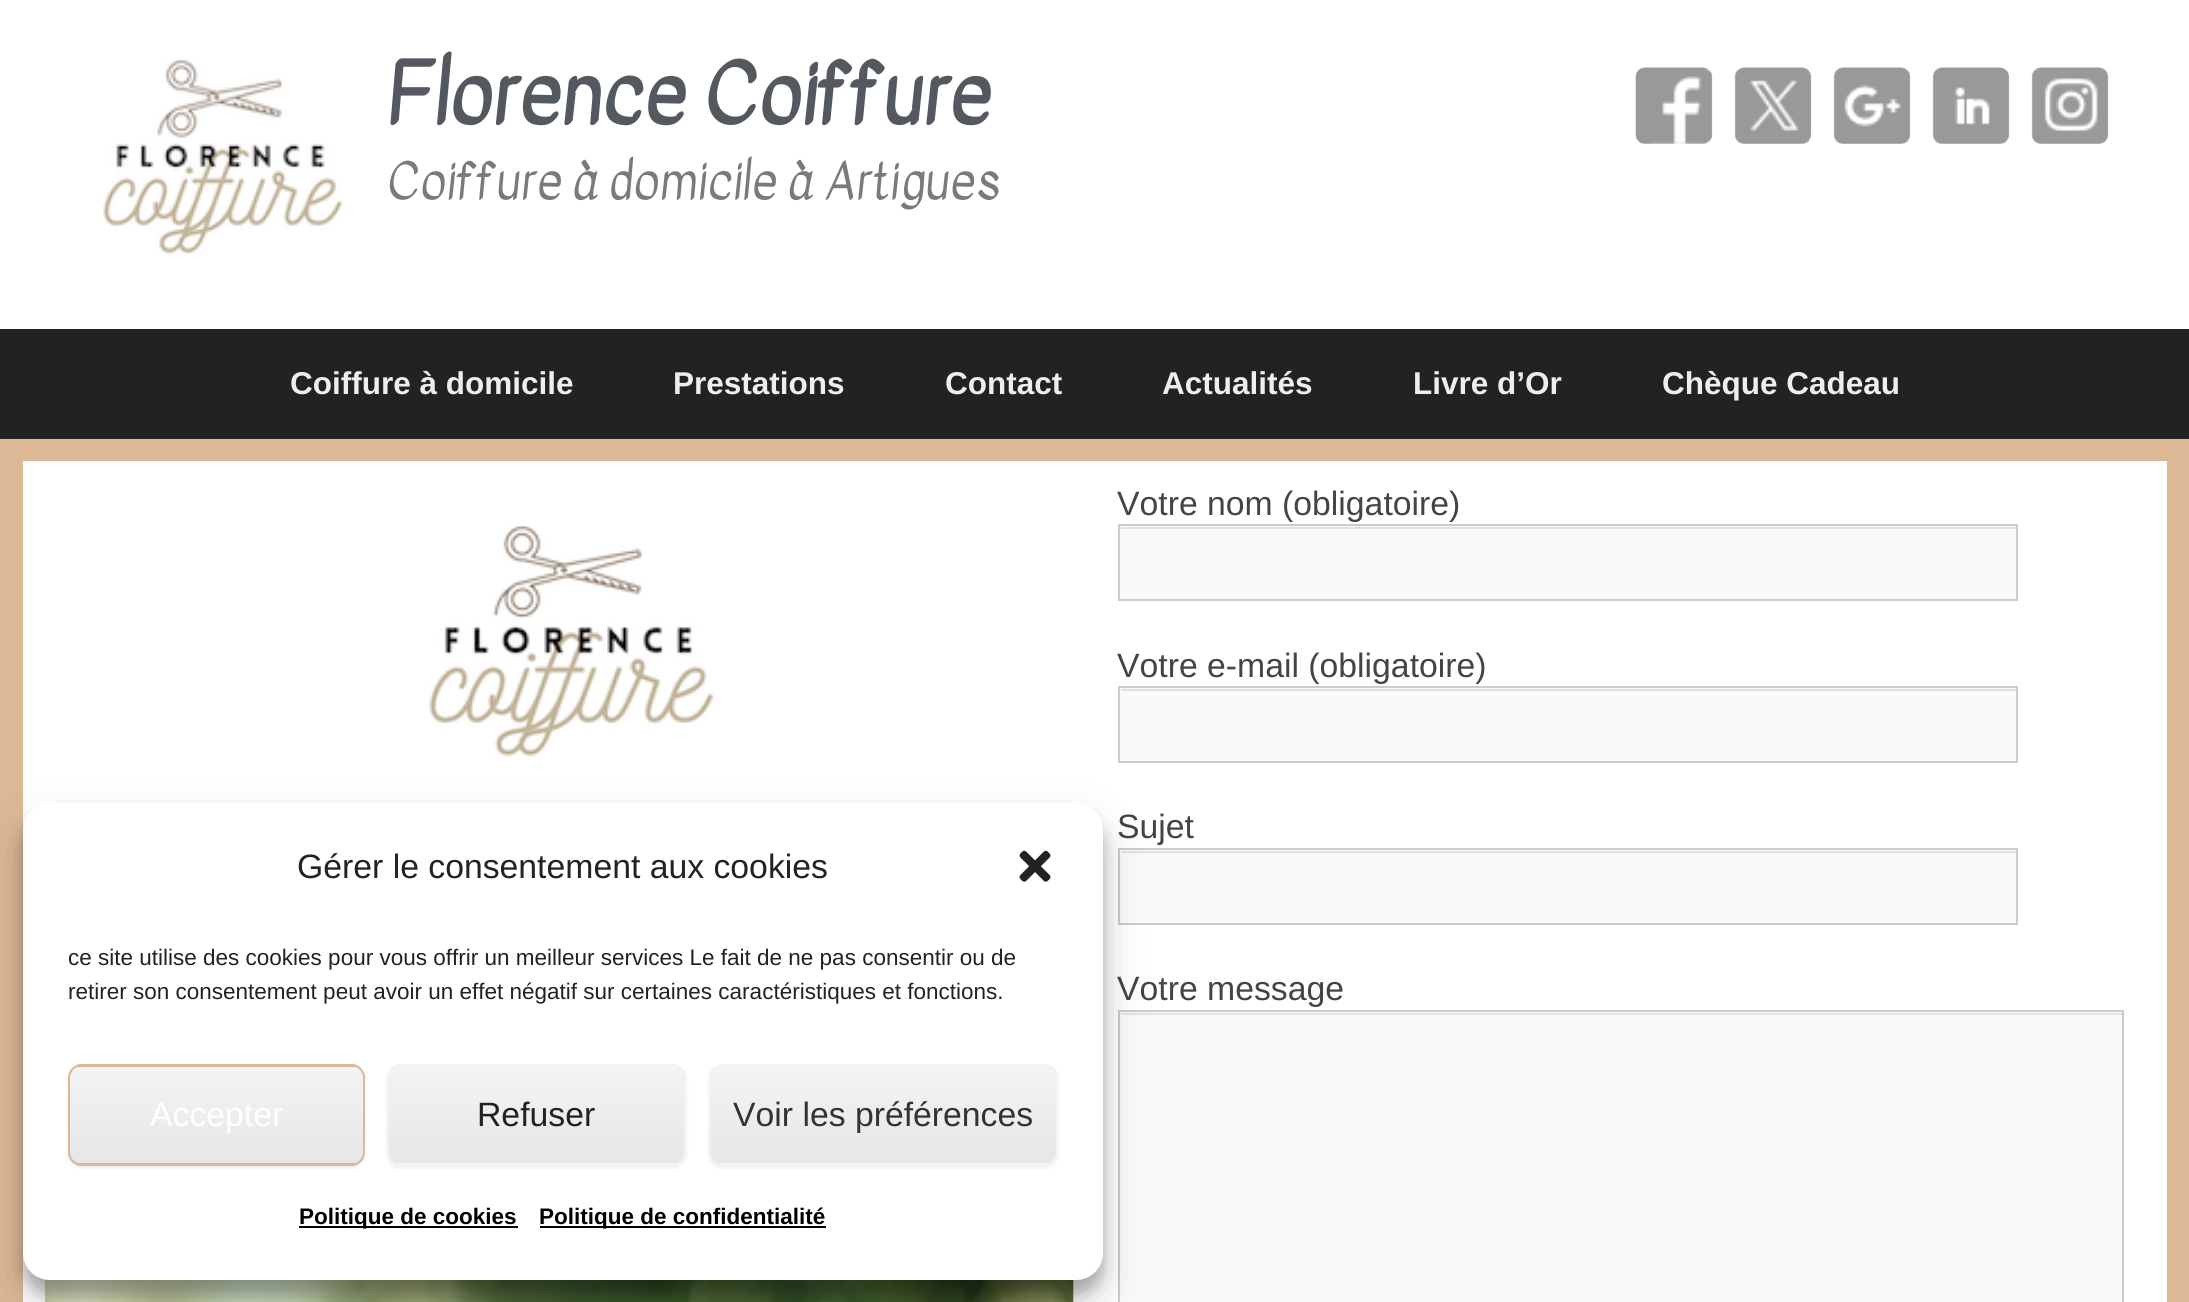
import math
import cairocffi as cairo

surface = cairo.ImageSurface(cairo.FORMAT_RGB24, 2189, 1302)
cr = cairo.Context(surface)
options = cairo.FontOptions()
options.set_hint_metrics(cairo.HINT_METRICS_OFF)
options.set_hint_style(cairo.HINT_STYLE_NONE)
cr.set_font_options(options)
cr.set_miter_limit(4)


def use_color(code):
    cr.set_source_rgb(*(v / 255 for v in bytes.fromhex(code[-6:])))


def round_rect(x, y, w, h, r):
    cr.new_sub_path()
    for i, (u, v) in enumerate([(x + w - r, y + h - r), (x + r, y + h - r), (x + r, y + r), (x + w - r, y + r)]):
        cr.arc(u, v, r, i * math.pi / 2, (i + 1) * math.pi / 2)
    cr.close_path()


def shadow(x, y, w, h, r, blur, alpha):
    cr.push_group_with_content(cairo.CONTENT_ALPHA)
    cr.set_operator(cairo.OPERATOR_SOURCE)
    for i in range(15, -16, -2):
        e = blur * i / 6
        if min(w, h) + 2 * e > 0:
            cr.set_source_rgba(0, 0, 0, alpha * math.erfc((i - 1) / 8.5) / 2)
            round_rect(x - e, y - e, w + 2 * e, h + 2 * e, max(0, min(r + e + blur * .6, min(w, h) / 2 + e)))
            cr.fill()
    cr.mask(cr.pop_group())


def picture(path, x, y, w, h):
    cr.save()
    cr.set_source_surface(cairo.ImageSurface.create_from_png(path), x, y)
    cr.rectangle(x, y, w, h)
    cr.fill()
    cr.restore()


use_color("#ffffff")
cr.paint()
picture("img1.png", 103, 58, 239, 197)
cr.select_font_face("Kavivanar", cairo.FONT_SLANT_NORMAL, cairo.FONT_WEIGHT_BOLD)
cr.set_font_size(81)
use_color("#54595f")
cr.move_to(386, 122)
cr.show_text("Florence Coiffure")
cr.select_font_face("Kavivanar")
cr.set_font_size(49.5)
use_color("#7a7a7a")
cr.move_to(386, 198)
cr.show_text("Coiffure à domicile à Artigues")
picture("img2.png", 1635, 67, 78, 77)
picture("img3.png", 1734, 67, 78, 77)
picture("img4.png", 1833, 67, 78, 77)
picture("img5.png", 1932, 67, 78, 77)
picture("img6.png", 2031, 67, 78, 77)
use_color("#222222")
cr.rectangle(0, 329, 2189, 110)
cr.fill()
cr.select_font_face("Liberation Sans", cairo.FONT_SLANT_NORMAL, cairo.FONT_WEIGHT_BOLD)
cr.set_font_size(31.5)
use_color("#eeeeee")
cr.move_to(290, 394)
cr.show_text("Coiffure à domicile")
cr.move_to(673, 394)
cr.show_text("Prestations")
cr.move_to(945, 394)
cr.show_text("Contact")
cr.move_to(1162, 394)
cr.show_text("Actualités")
cr.move_to(1413, 394)
cr.show_text("Livre d’Or")
cr.move_to(1662, 394)
cr.show_text("Chèque Cadeau")
use_color("#dcb896")
cr.rectangle(0, 439, 2189, 863)
cr.fill()
use_color("#ffffff")
cr.rectangle(23, 461, 2144, 841)
cr.fill()
picture("img7.png", 429, 526, 285, 231)
picture("img8.png", 45, 1279, 1029, 23)
cr.select_font_face("Liberation Sans")
cr.set_font_size(33.75)
use_color("#444444")
cr.move_to(1117, 515)
cr.show_text("Votre nom (obligatoire)")
use_color("#fafafa")
cr.rectangle(1120, 526, 896, 73)
cr.fill()
use_color("#e1e1e1")
cr.rectangle(1121, 527, 895, 2)
cr.fill()
cr.rectangle(1119, 525, 898, 75)
use_color("#cccccc")
cr.stroke()
use_color("#444444")
cr.move_to(1117, 677)
cr.show_text("Votre e-mail (obligatoire)")
use_color("#fafafa")
cr.rectangle(1120, 688, 896, 73)
cr.fill()
use_color("#e1e1e1")
cr.rectangle(1121, 689, 895, 2)
cr.fill()
cr.rectangle(1119, 687, 898, 75)
use_color("#cccccc")
cr.stroke()
use_color("#444444")
cr.move_to(1117, 838)
cr.show_text("Sujet")
use_color("#fafafa")
cr.rectangle(1120, 850, 896, 73)
cr.fill()
use_color("#e1e1e1")
cr.rectangle(1121, 851, 895, 2)
cr.fill()
cr.rectangle(1119, 849, 898, 75)
use_color("#cccccc")
cr.stroke()
use_color("#444444")
cr.move_to(1117, 1000)
cr.show_text("Votre message")
use_color("#fafafa")
cr.rectangle(1120, 1012, 1002, 290)
cr.fill()
use_color("#e1e1e1")
cr.rectangle(1121, 1013, 1001, 2)
cr.fill()
cr.rectangle(1119, 1011, 1004, 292)
use_color("#cccccc")
cr.stroke()
use_color("#000000")
shadow(23, 817, 1080, 477, 27, 7, 0.23)
shadow(23, 826, 1080, 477, 27, 22.5, 0.19)
use_color("#ffffff")
round_rect(23, 803, 1080, 477, 27)
cr.fill()
use_color("#222222")
cr.move_to(297, 878)
cr.show_text("Gérer le consentement aux cookies")
picture("img9.png", 1019, 850, 32, 32)
cr.set_font_size(22.5)
cr.move_to(68, 965)
cr.show_text("ce site utilise des cookies pour vous offrir un meilleur services Le fait de ne pas consentir ou de")
cr.move_to(68, 999)
cr.show_text("retirer son consentement peut avoir un effet négatif sur certaines caractéristiques et fonctions.")
use_color("#404040")
shadow(68, 1067, 297, 101, 14, 2, 0.1)
use_color("#dcb896")
round_rect(68, 1064, 297, 102, 14)
cr.fill()
cr.save()
round_rect(68, 1064, 297, 102, 14)
cr.clip()
gradient = cairo.LinearGradient(216, 1067, 216, 1163)
gradient.add_color_stop_rgba(0, 0.957, 0.957, 0.957, 1)
gradient.add_color_stop_rgba(1, 0.902, 0.902, 0.902, 1)
cr.set_source(gradient)
cr.rectangle(68, 1067, 297, 96)
cr.fill()
cr.restore()
round_rect(69, 1065, 295, 100, 13)
cr.stroke()
cr.set_font_size(33.75)
use_color("#ffffff")
cr.move_to(150, 1126)
cr.show_text("Accepter")
use_color("#404040")
shadow(387, 1067, 299, 101, 14, 2, 0.1)
use_color("#f9f9f9")
round_rect(387, 1064, 299, 102, 14)
cr.fill()
cr.save()
round_rect(387, 1064, 299, 102, 14)
cr.clip()
gradient = cairo.LinearGradient(537, 1067, 537, 1163)
gradient.add_color_stop_rgba(0, 0.957, 0.957, 0.957, 1)
gradient.add_color_stop_rgba(1, 0.902, 0.902, 0.902, 1)
cr.set_source(gradient)
cr.rectangle(387, 1067, 299, 96)
cr.fill()
cr.restore()
round_rect(388, 1065, 297, 100, 13)
use_color("#f2f2f2")
cr.stroke()
use_color("#222222")
cr.move_to(477, 1126)
cr.show_text("Refuser")
use_color("#404040")
shadow(709, 1067, 349, 101, 14, 2, 0.1)
use_color("#f9f9f9")
round_rect(709, 1064, 349, 102, 14)
cr.fill()
cr.save()
round_rect(709, 1064, 349, 102, 14)
cr.clip()
gradient = cairo.LinearGradient(883, 1067, 883, 1163)
gradient.add_color_stop_rgba(0, 0.957, 0.957, 0.957, 1)
gradient.add_color_stop_rgba(1, 0.902, 0.902, 0.902, 1)
cr.set_source(gradient)
cr.rectangle(709, 1067, 349, 96)
cr.fill()
cr.restore()
round_rect(710, 1065, 347, 100, 13)
use_color("#f2f2f2")
cr.stroke()
use_color("#333333")
cr.move_to(733, 1126)
cr.show_text("Voir les préférences")
use_color("#000000")
cr.rectangle(299, 1226, 219, 2)
cr.fill()
cr.select_font_face("Liberation Sans", cairo.FONT_SLANT_NORMAL, cairo.FONT_WEIGHT_BOLD)
cr.set_font_size(22.5)
cr.move_to(299, 1224)
cr.show_text("Politique de cookies")
cr.rectangle(540, 1226, 286, 2)
cr.fill()
cr.move_to(539, 1224)
cr.show_text("Politique de confidentialité")
surface.write_to_png("result.png")
